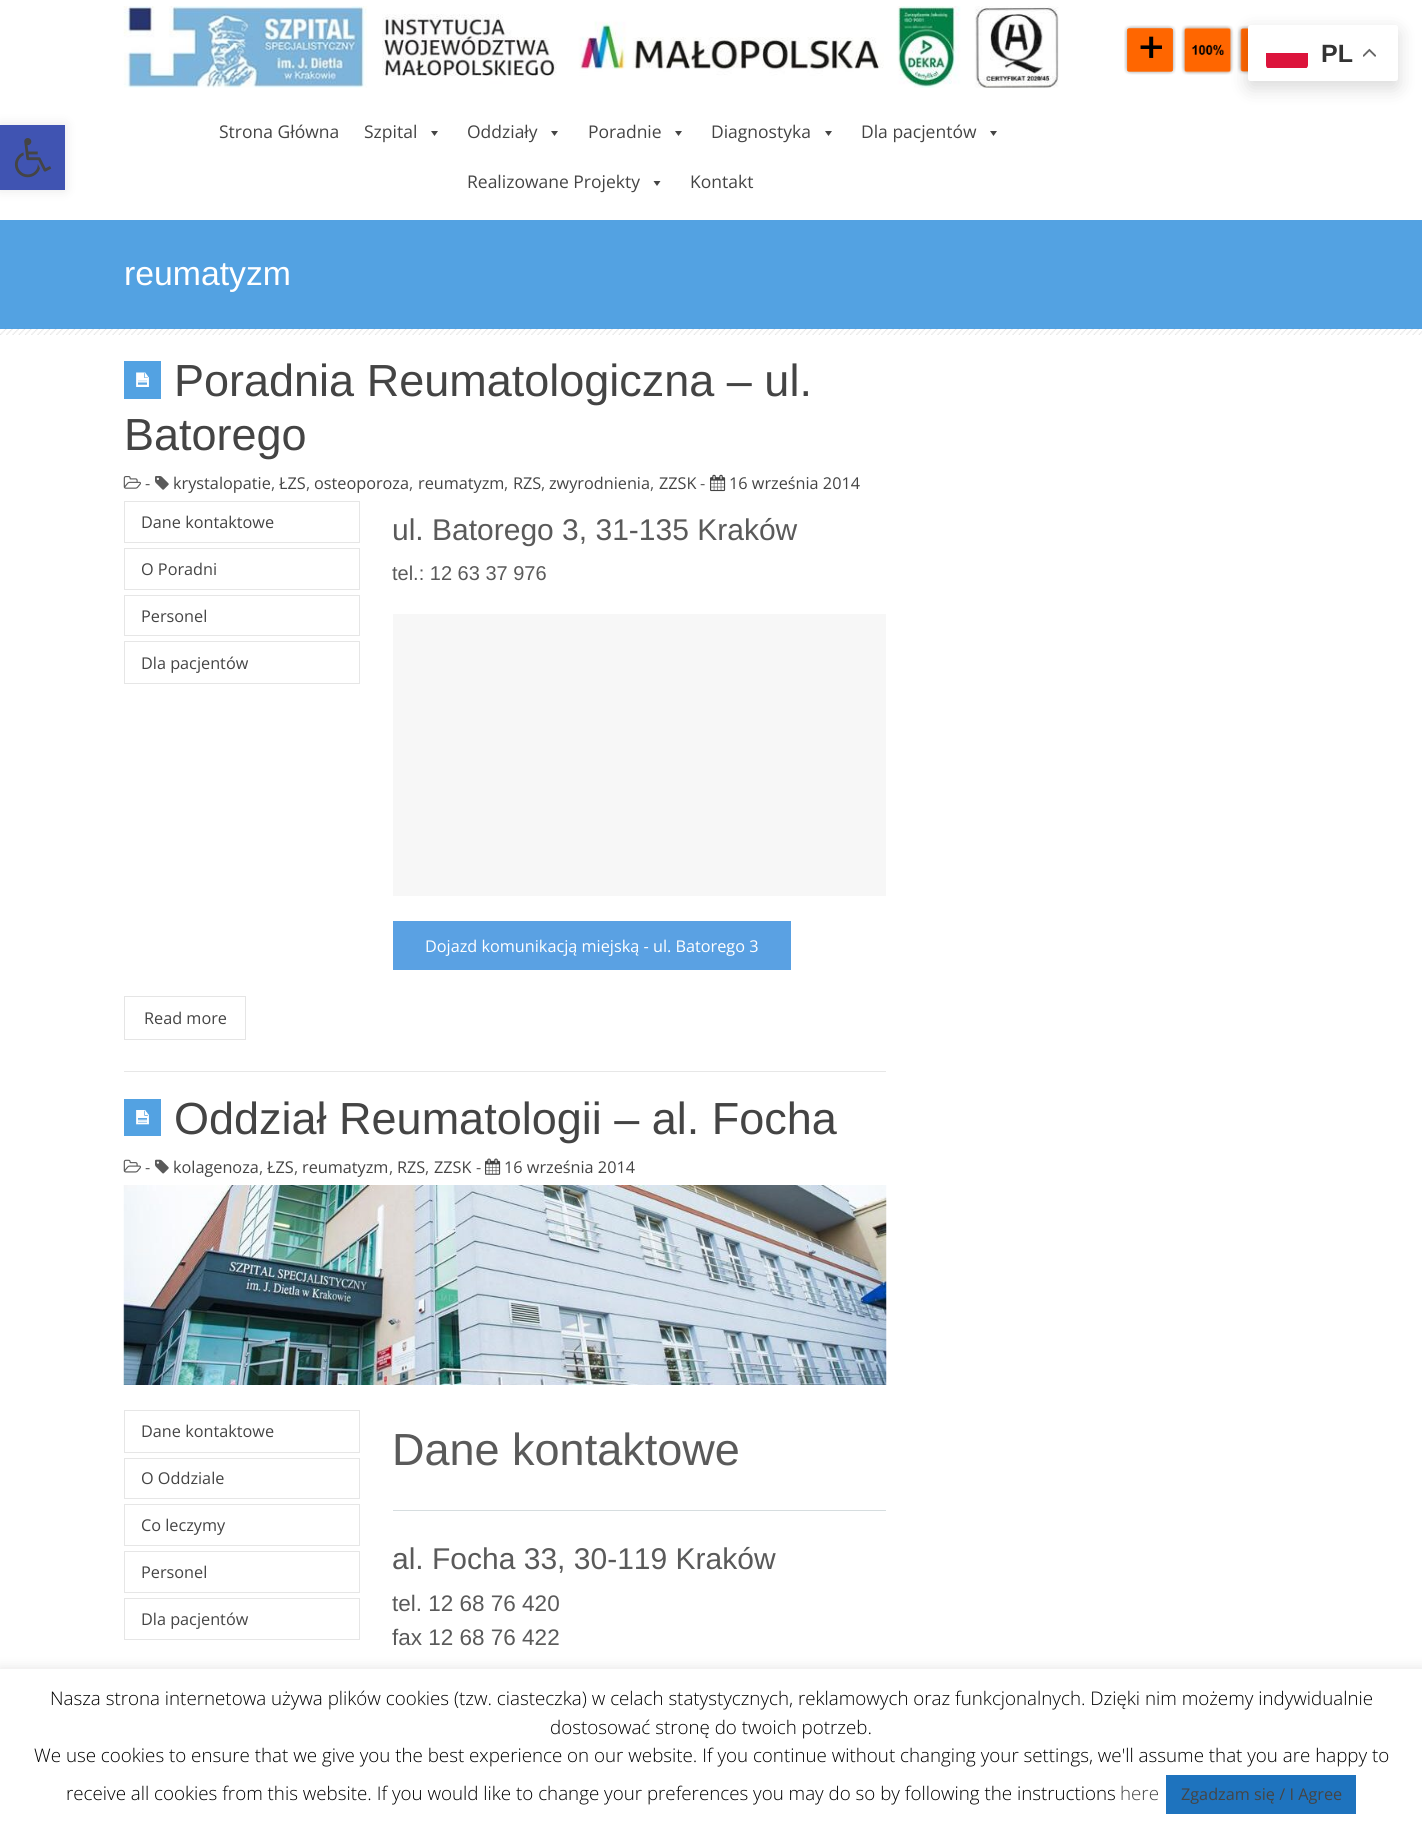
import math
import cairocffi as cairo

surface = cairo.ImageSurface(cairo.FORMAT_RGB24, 1422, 1828)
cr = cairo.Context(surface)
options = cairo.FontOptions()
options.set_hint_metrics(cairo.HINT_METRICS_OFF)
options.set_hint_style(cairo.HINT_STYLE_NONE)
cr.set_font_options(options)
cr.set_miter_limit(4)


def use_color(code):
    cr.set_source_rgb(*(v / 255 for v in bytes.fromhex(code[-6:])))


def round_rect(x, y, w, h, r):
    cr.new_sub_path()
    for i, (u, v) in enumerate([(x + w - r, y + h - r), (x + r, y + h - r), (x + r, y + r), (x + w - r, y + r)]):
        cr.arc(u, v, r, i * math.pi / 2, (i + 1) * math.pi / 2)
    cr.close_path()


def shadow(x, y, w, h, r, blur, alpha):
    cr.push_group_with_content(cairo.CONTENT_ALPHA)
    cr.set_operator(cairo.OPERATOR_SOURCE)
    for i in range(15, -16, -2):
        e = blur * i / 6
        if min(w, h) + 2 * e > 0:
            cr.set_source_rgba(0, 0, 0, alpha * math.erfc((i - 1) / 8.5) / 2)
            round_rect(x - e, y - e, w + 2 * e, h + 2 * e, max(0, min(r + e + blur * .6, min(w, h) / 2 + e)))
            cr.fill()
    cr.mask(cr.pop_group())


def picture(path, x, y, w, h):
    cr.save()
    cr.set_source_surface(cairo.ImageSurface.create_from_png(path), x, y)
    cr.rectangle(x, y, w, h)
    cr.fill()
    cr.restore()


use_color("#ffffff")
cr.paint()
picture("img5.png", 1181, 25, 53, 50)
picture("img6.png", 1237, 25, 14, 50)
use_color("#000000")
shadow(1248, 31, 150, 57, 2.5, 9.5, 0.15)
use_color("#ffffff")
round_rect(1248, 25, 150, 56, 2.5)
cr.fill()
cr.save()
round_rect(1266, 38, 42, 31, 4)
cr.clip()
use_color("#dc143c")
cr.rectangle(1266, 53, 42, 15)
cr.fill()
cr.restore()
cr.select_font_face("Liberation Sans", cairo.FONT_SLANT_NORMAL, cairo.FONT_WEIGHT_BOLD)
cr.set_font_size(25)
use_color("#333333")
cr.move_to(1321, 62)
cr.show_text("PL")
picture("img1.png", 1363, 48, 13, 9)
use_color("#000000")
shadow(0, 125, 65, 65, 0, 6, 0.1)
use_color("#4054b2")
cr.rectangle(0, 125, 65, 65)
cr.fill()
picture("img2.png", 14, 138, 38, 40)
picture("img3.png", 123, 6, 936, 82)
picture("img4.png", 1124, 25, 52, 50)
cr.select_font_face("Open Sans")
cr.set_font_size(17.5)
use_color("#444444")
cr.move_to(219, 138)
cr.show_text("Strona Główna")
cr.move_to(364, 138)
cr.show_text("Szpital")
cr.new_path()
cr.move_to(438, 131)
cr.line_to(434.5, 136)
cr.line_to(431, 131)
cr.close_path()
cr.fill()
cr.move_to(467, 138)
cr.show_text("Oddziały")
cr.new_path()
cr.move_to(558, 131)
cr.line_to(554.5, 136)
cr.line_to(551, 131)
cr.close_path()
cr.fill()
cr.move_to(588, 138)
cr.show_text("Poradnie")
cr.new_path()
cr.move_to(682, 131)
cr.line_to(678.5, 136)
cr.line_to(675, 131)
cr.close_path()
cr.fill()
cr.move_to(711, 138)
cr.show_text("Diagnostyka")
cr.new_path()
cr.move_to(832, 131)
cr.line_to(828.5, 136)
cr.line_to(825, 131)
cr.close_path()
cr.fill()
cr.move_to(861, 138)
cr.show_text("Dla pacjentów")
cr.new_path()
cr.move_to(997, 131)
cr.line_to(993.5, 136)
cr.line_to(990, 131)
cr.close_path()
cr.fill()
cr.move_to(467, 188)
cr.show_text("Realizowane Projekty")
cr.new_path()
cr.move_to(660.5, 181)
cr.line_to(657, 186)
cr.line_to(653.5, 181)
cr.close_path()
cr.fill()
cr.move_to(690, 188)
cr.show_text("Kontakt")
use_color("#53a2e2")
cr.rectangle(0, 220, 1422, 109)
cr.fill()
cr.select_font_face("Liberation Sans")
cr.set_font_size(33.75)
use_color("#ffffff")
cr.move_to(124, 285)
cr.show_text("reumatyzm")
picture("img7.png", 0, 328, 1422, 7)
use_color("#53a2e2")
cr.rectangle(124, 361, 37, 38)
cr.fill()
picture("img8.png", 136, 372, 13, 15)
cr.set_font_size(45)
use_color("#444444")
cr.move_to(174, 396)
cr.show_text("Poradnia Reumatologiczna – ul.")
cr.move_to(124, 450)
cr.show_text("Batorego")
picture("img9.png", 123, 476, 18, 13)
cr.select_font_face("Open Sans")
cr.set_font_size(16.25)
use_color("#5a5a5a")
cr.move_to(145, 489)
cr.show_text("-")
picture("img10.png", 155, 476, 14, 14)
use_color("#444444")
cr.move_to(173, 489)
cr.show_text("krystalopatie")
cr.move_to(279, 489)
cr.show_text("ŁZS")
cr.move_to(314, 489)
cr.show_text("osteoporoza")
cr.move_to(418, 489)
cr.show_text("reumatyzm")
cr.move_to(513, 489)
cr.show_text("RZS")
cr.move_to(549, 489)
cr.show_text("zwyrodnienia")
cr.move_to(659, 489)
cr.show_text("ZZSK")
use_color("#5a5a5a")
cr.move_to(700, 489)
cr.show_text("-")
picture("img11.png", 710, 474, 16, 18)
use_color("#444444")
cr.move_to(729, 489)
cr.show_text("16 września 2014")
use_color("#5a5a5a")
cr.move_to(271, 489)
cr.show_text(",")
cr.move_to(306, 489)
cr.show_text(",")
cr.move_to(409, 489)
cr.show_text(",")
cr.move_to(504, 489)
cr.show_text(",")
cr.move_to(541, 489)
cr.show_text(",")
cr.move_to(650, 489)
cr.show_text(",")
cr.rectangle(124.5, 501.5, 235, 41)
use_color("#e6e6e6")
cr.set_line_width(1)
cr.stroke()
use_color("#444444")
cr.move_to(141, 528)
cr.show_text("Dane kontaktowe")
cr.rectangle(124.5, 548.5, 235, 41)
use_color("#e6e6e6")
cr.stroke()
use_color("#444444")
cr.move_to(141, 575)
cr.show_text("O Poradni")
cr.rectangle(124.5, 595.5, 235, 40)
use_color("#e6e6e6")
cr.stroke()
use_color("#444444")
cr.move_to(141, 622)
cr.show_text("Personel")
cr.rectangle(124.5, 641.5, 235, 42)
use_color("#e6e6e6")
cr.stroke()
use_color("#444444")
cr.move_to(141, 669)
cr.show_text("Dla pacjentów")
cr.select_font_face("Liberation Sans")
cr.set_font_size(30)
use_color("#5a5a5a")
cr.move_to(392, 540)
cr.show_text("ul. Batorego 3, 31-135 Kraków")
cr.set_font_size(20)
cr.move_to(392, 580)
cr.show_text("tel.: 12 63 37 976")
use_color("#f7f7f7")
cr.rectangle(393, 614, 493, 282)
cr.fill()
use_color("#5aa1e3")
cr.rectangle(393, 921, 398, 49)
cr.fill()
cr.select_font_face("Open Sans")
cr.set_font_size(16.25)
use_color("#ffffff")
cr.move_to(425, 952)
cr.show_text("Dojazd komunikacją miejską - ul. Batorego 3")
use_color("#e7e7e7")
cr.rectangle(124, 1071, 762, 1)
cr.fill()
cr.rectangle(124.5, 996.5, 121, 43)
use_color("#e5e5e5")
cr.stroke()
use_color("#444444")
cr.move_to(144, 1024)
cr.show_text("Read more")
use_color("#53a2e2")
cr.rectangle(124, 1099, 37, 37)
cr.fill()
picture("img12.png", 136, 1110, 13, 15)
cr.select_font_face("Liberation Sans")
cr.set_font_size(45)
use_color("#444444")
cr.move_to(174, 1134)
cr.show_text("Oddział Reumatologii – al. Focha")
picture("img13.png", 123, 1159, 18, 14)
cr.select_font_face("Open Sans")
cr.set_font_size(16.25)
use_color("#5a5a5a")
cr.move_to(145, 1173)
cr.show_text("-")
picture("img14.png", 155, 1159, 14, 15)
use_color("#444444")
cr.move_to(173, 1173)
cr.show_text("kolagenoza")
cr.move_to(267, 1173)
cr.show_text("ŁZS")
cr.move_to(302, 1173)
cr.show_text("reumatyzm")
cr.move_to(397, 1173)
cr.show_text("RZS")
cr.move_to(434, 1173)
cr.show_text("ZZSK")
use_color("#5a5a5a")
cr.move_to(476, 1173)
cr.show_text("-")
picture("img15.png", 485, 1158, 16, 17)
use_color("#444444")
cr.move_to(504, 1173)
cr.show_text("16 września 2014")
use_color("#5a5a5a")
cr.move_to(259, 1173)
cr.show_text(",")
cr.move_to(294, 1173)
cr.show_text(",")
cr.move_to(389, 1173)
cr.show_text(",")
cr.move_to(425, 1173)
cr.show_text(",")
picture("img16.png", 123, 1185, 764, 200)
cr.rectangle(124.5, 1410.5, 235, 42)
use_color("#e6e6e6")
cr.stroke()
use_color("#444444")
cr.move_to(141, 1437)
cr.show_text("Dane kontaktowe")
cr.rectangle(124.5, 1458.5, 235, 40)
use_color("#e6e6e6")
cr.stroke()
use_color("#444444")
cr.move_to(141, 1484)
cr.show_text("O Oddziale")
cr.rectangle(124.5, 1504.5, 235, 41)
use_color("#e6e6e6")
cr.stroke()
use_color("#444444")
cr.move_to(141, 1531)
cr.show_text("Co leczymy")
cr.rectangle(124.5, 1551.5, 235, 41)
use_color("#e6e6e6")
cr.stroke()
use_color("#444444")
cr.move_to(141, 1578)
cr.show_text("Personel")
cr.rectangle(124.5, 1598.5, 235, 41)
use_color("#e6e6e6")
cr.stroke()
use_color("#444444")
cr.move_to(141, 1625)
cr.show_text("Dla pacjentów")
cr.select_font_face("Liberation Sans")
cr.set_font_size(45)
use_color("#5a5a5a")
cr.move_to(392, 1465)
cr.show_text("Dane kontaktowe")
use_color("#d6dddf")
cr.rectangle(393, 1510, 493, 1)
cr.fill()
cr.set_font_size(30)
use_color("#5a5a5a")
cr.move_to(392, 1569)
cr.show_text("al. Focha 33, 30-119 Kraków")
cr.set_font_size(22.5)
cr.move_to(392, 1611)
cr.show_text("tel. 12 68 76 420")
cr.move_to(392, 1645)
cr.show_text("fax 12 68 76 422")
use_color("#acabab")
shadow(0, 1668, 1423, 160, 0, 6, 0.3)
use_color("#ffffff")
cr.rectangle(0, 1669, 1422, 159)
cr.fill()
cr.select_font_face("Open Sans Light")
cr.set_font_size(18.75)
use_color("#000000")
cr.move_to(50, 1705)
cr.show_text("Nasza strona internetowa używa plików cookies (tzw. ciasteczka) w celach statystycznych, reklamowych oraz funkcjonalnych. Dzięki nim możemy indywidualnie")
cr.move_to(550, 1734)
cr.show_text("dostosować stronę do twoich potrzeb.")
cr.move_to(34, 1762)
cr.show_text("We use cookies to ensure that we give you the best experience on our website. If you continue without changing your settings, we'll assume that you are happy to")
cr.move_to(66, 1800)
cr.show_text("receive all cookies from this website. If you would like to change your preferences you may do so by following the instructions")
use_color("#444444")
cr.move_to(1120, 1800)
cr.show_text("here")
use_color("#1e73be")
cr.rectangle(1166, 1775, 190, 39)
cr.fill()
cr.select_font_face("Open Sans")
cr.set_font_size(16.25)
use_color("#444444")
cr.move_to(1181, 1800)
cr.show_text("Zgadzam się / I Agree")
surface.write_to_png("result.png")
